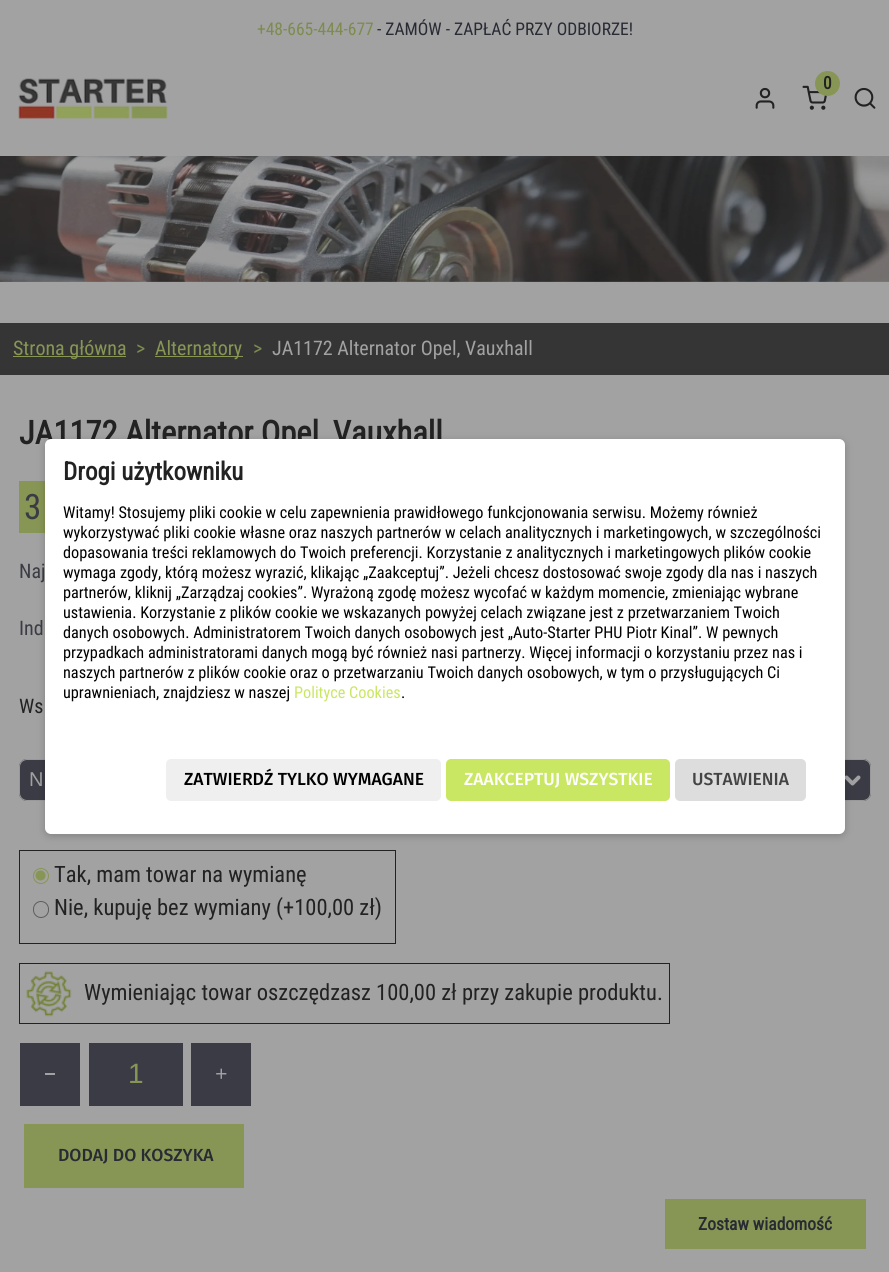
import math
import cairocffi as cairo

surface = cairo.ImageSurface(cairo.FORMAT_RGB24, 889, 1272)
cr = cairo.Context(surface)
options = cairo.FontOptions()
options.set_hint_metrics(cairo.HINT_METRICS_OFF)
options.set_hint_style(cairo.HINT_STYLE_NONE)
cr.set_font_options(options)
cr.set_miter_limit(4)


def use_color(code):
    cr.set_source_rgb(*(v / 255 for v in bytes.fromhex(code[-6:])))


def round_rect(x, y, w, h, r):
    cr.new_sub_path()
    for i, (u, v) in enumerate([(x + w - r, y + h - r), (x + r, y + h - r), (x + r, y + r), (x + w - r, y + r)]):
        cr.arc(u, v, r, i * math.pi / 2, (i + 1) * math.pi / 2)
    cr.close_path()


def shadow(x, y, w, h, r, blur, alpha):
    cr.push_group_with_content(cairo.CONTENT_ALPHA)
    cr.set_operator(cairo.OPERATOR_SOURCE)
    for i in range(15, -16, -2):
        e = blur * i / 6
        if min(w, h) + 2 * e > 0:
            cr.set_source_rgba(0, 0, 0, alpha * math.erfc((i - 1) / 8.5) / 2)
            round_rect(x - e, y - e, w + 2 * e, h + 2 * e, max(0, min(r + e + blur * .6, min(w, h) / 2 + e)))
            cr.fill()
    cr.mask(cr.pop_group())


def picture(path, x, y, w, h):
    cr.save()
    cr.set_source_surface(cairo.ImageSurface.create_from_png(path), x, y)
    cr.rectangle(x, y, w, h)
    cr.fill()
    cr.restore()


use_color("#a2a2a2")
cr.paint()
cr.select_font_face("Roboto Condensed")
cr.set_font_size(17.5)
use_color("#7d8b4f")
cr.move_to(257, 35)
cr.show_text("+48-665-444-677")
use_color("#282a34")
cr.move_to(377, 35)
cr.show_text("- ZAMÓW - ZAPŁAĆ PRZY ODBIORZE!")
picture("img1.png", 18, 78, 150, 41)
picture("img2.png", 802, 85, 25, 25)
use_color("#879654")
cr.arc(827.5, 83.5, 12.5, 0, 2 * math.pi)
cr.fill()
cr.select_font_face("Roboto Condensed", cairo.FONT_SLANT_NORMAL, cairo.FONT_WEIGHT_BOLD)
use_color("#222222")
cr.move_to(823, 89)
cr.show_text("0")
picture("img3.png", 755, 87, 20, 22)
picture("img4.png", 854, 87, 22, 22)
picture("img5.png", 0, 156, 889, 126)
use_color("#353535")
cr.rectangle(0, 323, 889, 52)
cr.fill()
use_color("#879654")
cr.rectangle(13, 356, 113, 1)
cr.fill()
cr.select_font_face("Roboto Condensed")
cr.set_font_size(20)
cr.move_to(13, 355)
cr.show_text("Strona główna")
use_color("#7d8b4f")
cr.move_to(136, 355)
cr.show_text(">")
use_color("#879654")
cr.rectangle(155, 356, 88, 1)
cr.fill()
cr.move_to(155, 355)
cr.show_text("Alternatory")
use_color("#7d8b4f")
cr.move_to(253, 355)
cr.show_text(">")
use_color("#a2a2a2")
cr.move_to(272, 355)
cr.show_text("JA1172 Alternator Opel, Vauxhall")
cr.select_font_face("Roboto Condensed", cairo.FONT_SLANT_NORMAL, cairo.FONT_WEIGHT_BOLD)
cr.set_font_size(32.5)
use_color("#222222")
cr.move_to(19, 444)
cr.show_text("JA1172 Alternator Opel, Vauxhall")
use_color("#879654")
cr.rectangle(19, 481, 26, 52)
cr.fill()
cr.select_font_face("Roboto Condensed")
cr.set_font_size(35)
use_color("#3a3b44")
cr.move_to(24, 519)
cr.show_text("3")
cr.set_font_size(20)
cr.move_to(19, 578)
cr.show_text("Naj")
cr.move_to(19, 635)
cr.show_text("Ind")
use_color("#222222")
cr.move_to(19, 713)
cr.show_text("Ws")
use_color("#3a3b44")
round_rect(19, 759, 852, 42, 8)
cr.fill()
cr.new_path()
cr.move_to(846.5, 777.5)
cr.line_to(852.5, 783.5)
cr.line_to(858.5, 777.5)
use_color("#a2a2a2")
cr.set_line_width(4)
cr.set_line_cap(cairo.LINE_CAP_ROUND)
cr.set_line_join(cairo.LINE_JOIN_ROUND)
cr.stroke()
round_rect(19.5, 759.5, 851, 41, 7.5)
use_color("#999999")
cr.set_line_width(1)
cr.set_line_cap(cairo.LINE_CAP_BUTT)
cr.set_line_join(cairo.LINE_JOIN_MITER)
cr.stroke()
cr.select_font_face("Liberation Sans")
use_color("#a2a2a2")
cr.move_to(29, 786)
cr.show_text("N")
cr.rectangle(19.5, 850.5, 376, 93)
use_color("#222222")
cr.stroke()
cr.arc(41, 876, 7.5, 0, 2 * math.pi)
use_color("#879654")
cr.stroke()
cr.arc(40.5, 875.5, 5, 0, 2 * math.pi)
cr.fill()
cr.select_font_face("Roboto Condensed")
cr.set_font_size(22.5)
use_color("#222222")
cr.move_to(54, 882)
cr.show_text("Tak, mam towar na wymianę")
round_rect(33.5, 901.5, 15, 16, 7.5)
use_color("#5d5d5d")
cr.stroke()
use_color("#222222")
cr.move_to(54, 915)
cr.show_text("Nie, kupuję bez wymiany (+100,00 zł)")
cr.rectangle(19.5, 963.5, 650, 60)
cr.stroke()
picture("img6.png", 26, 971, 46, 46)
cr.move_to(84, 1000)
cr.show_text("Wymieniając towar oszczędzasz 100,00 zł przy zakupie produktu.")
use_color("#3a3b44")
cr.rectangle(20, 1043, 60, 63)
cr.fill()
use_color("#a2a2a2")
cr.rectangle(45, 1073, 10, 2)
cr.fill()
use_color("#3a3b44")
cr.rectangle(191, 1043, 60, 63)
cr.fill()
picture("img7.png", 216, 1068, 11, 11)
cr.rectangle(89, 1043, 94, 63)
cr.fill()
cr.select_font_face("Liberation Sans")
cr.set_font_size(28)
use_color("#879654")
cr.move_to(128, 1083)
cr.show_text("1")
cr.rectangle(25.5, 1125.5, 217, 61)
cr.fill_preserve()
cr.set_line_width(3)
cr.stroke()
cr.select_font_face("Fira Sans Medium")
cr.set_font_size(17.5)
use_color("#282a34")
cr.move_to(58, 1161)
cr.show_text("DODAJ DO KOSZYKA")
use_color("#000000")
shadow(45, 441, 800, 395, 6, 4, 0.2)
use_color("#ffffff")
round_rect(45, 439, 800, 395, 6)
cr.fill()
cr.select_font_face("Roboto Condensed", cairo.FONT_SLANT_NORMAL, cairo.FONT_WEIGHT_BOLD)
cr.set_font_size(25)
use_color("#222222")
cr.move_to(63, 480)
cr.show_text("Drogi użytkowniku")
cr.select_font_face("Roboto Condensed")
cr.set_font_size(16.25)
use_color("#000000")
cr.move_to(63, 518)
cr.show_text("Witamy! Stosujemy pliki cookie w celu zapewnienia prawidłowego funkcjonowania serwisu. Możemy również")
cr.move_to(63, 538)
cr.show_text("wykorzystywać pliki cookie własne oraz naszych partnerów w celach analitycznych i marketingowych, w szczególności")
cr.move_to(63, 558)
cr.show_text("dopasowania treści reklamowych do Twoich preferencji. Korzystanie z analitycznych i marketingowych plików cookie")
cr.move_to(63, 578)
cr.show_text("wymaga zgody, którą możesz wyrazić, klikając „Zaakceptuj”. Jeżeli chcesz dostosować swoje zgody dla nas i naszych")
cr.move_to(63, 598)
cr.show_text("partnerów, kliknij „Zarządzaj cookies”. Wyrażoną zgodę możesz wycofać w każdym momencie, zmieniając wybrane")
cr.move_to(63, 618)
cr.show_text("ustawienia. Korzystanie z plików cookie we wskazanych powyżej celach związane jest z przetwarzaniem Twoich")
cr.move_to(63, 638)
cr.show_text("danych osobowych. Administratorem Twoich danych osobowych jest „Auto-Starter PHU Piotr Kinal”. W pewnych")
cr.move_to(63, 658)
cr.show_text("przypadkach administratorami danych mogą być również nasi partnerzy. Więcej informacji o korzystaniu przez nas i")
cr.move_to(63, 678)
cr.show_text("naszych partnerów z plików cookie oraz o przetwarzaniu Twoich danych osobowych, w tym o przysługujących Ci")
cr.move_to(63, 698)
cr.show_text("uprawnieniach, znajdziesz w naszej")
use_color("#c9e763")
cr.move_to(294, 698)
cr.show_text("Polityce Cookies")
use_color("#000000")
cr.move_to(401, 698)
cr.show_text(".")
use_color("#efefef")
round_rect(166, 759, 275, 42, 5)
cr.fill()
cr.select_font_face("Fira Sans Medium")
cr.set_font_size(17.5)
use_color("#000000")
cr.move_to(184, 785)
cr.show_text("ZATWIERDŹ TYLKO WYMAGANE")
use_color("#c9e763")
round_rect(446, 759, 224, 42, 5)
cr.fill()
use_color("#ffffff")
cr.move_to(464, 785)
cr.show_text("ZAAKCEPTUJ WSZYSTKIE")
use_color("#dddddd")
round_rect(675, 759, 131, 42, 5)
cr.fill()
use_color("#444444")
cr.move_to(692, 785)
cr.show_text("USTAWIENIA")
use_color("#879654")
cr.rectangle(665, 1199, 201, 50)
cr.fill()
cr.select_font_face("Roboto Condensed", cairo.FONT_SLANT_NORMAL, cairo.FONT_WEIGHT_BOLD)
use_color("#282a34")
cr.move_to(698, 1230)
cr.show_text("Zostaw wiadomość")
surface.write_to_png("result.png")
